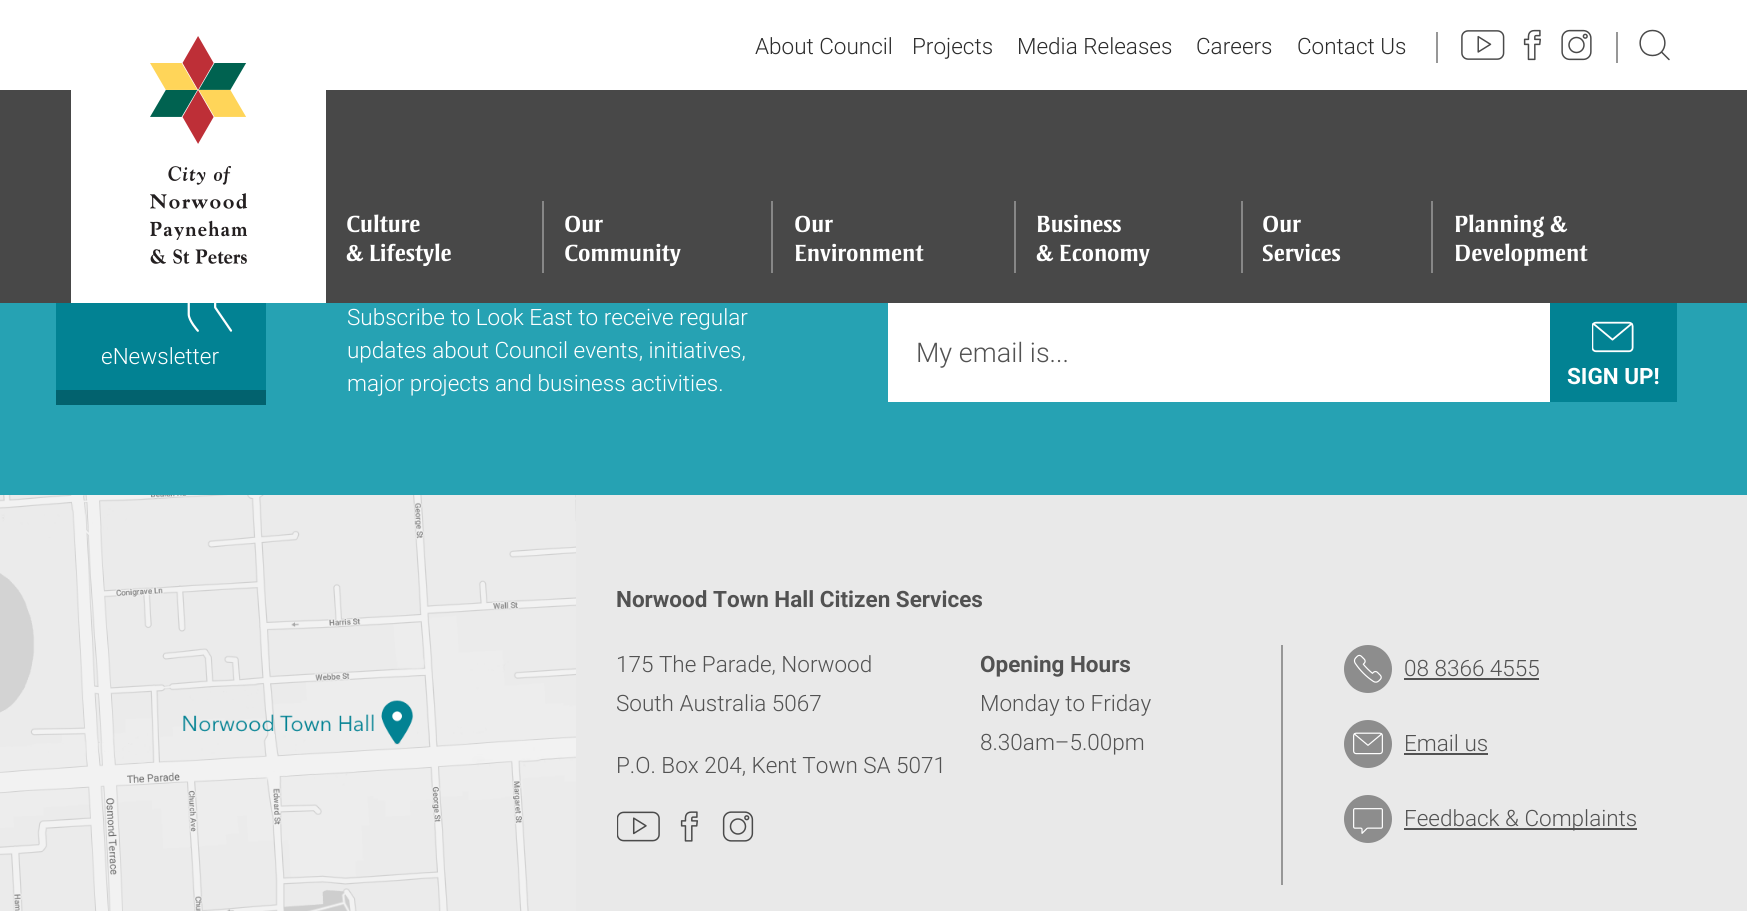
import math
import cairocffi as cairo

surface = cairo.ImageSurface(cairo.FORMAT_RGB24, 1747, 911)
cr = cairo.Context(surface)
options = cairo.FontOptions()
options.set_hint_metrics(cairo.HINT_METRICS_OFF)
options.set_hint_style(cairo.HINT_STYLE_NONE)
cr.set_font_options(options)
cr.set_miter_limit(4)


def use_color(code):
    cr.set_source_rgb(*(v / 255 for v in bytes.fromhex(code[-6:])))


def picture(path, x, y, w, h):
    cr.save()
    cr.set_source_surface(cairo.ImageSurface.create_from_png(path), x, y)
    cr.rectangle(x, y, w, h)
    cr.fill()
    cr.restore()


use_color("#26a2b3")
cr.paint()
use_color("#484848")
cr.rectangle(0, 90, 1747, 213)
cr.fill()
use_color("#ffffff")
cr.rectangle(71, 90, 255, 213)
cr.fill()
cr.rectangle(0, 0, 1747, 90)
cr.fill()
picture("img1.png", 150, 36, 98, 228)
cr.select_font_face("Roboto Light")
cr.set_font_size(22.5)
use_color("#2c2c2c")
cr.move_to(755, 54)
cr.show_text("About Council")
cr.move_to(912, 54)
cr.show_text("Projects")
cr.move_to(1017, 54)
cr.show_text("Media Releases")
cr.move_to(1196, 54)
cr.show_text("Careers")
cr.move_to(1297, 54)
cr.show_text("Contact Us")
use_color("#979797")
cr.rectangle(1436, 32, 2, 31)
cr.fill()
picture("img2.png", 1461, 30, 44, 30)
picture("img3.png", 1523, 29, 18, 32)
picture("img4.png", 1561, 29, 31, 32)
cr.rectangle(1616, 32, 2, 31)
cr.fill()
cr.new_path()
cr.move_to(1661.5, 52)
cr.line_to(1669, 59.5)
cr.move_to(1652.5, 30.5)
cr.curve_to(1669, 30.5, 1669, 55.5, 1652.5, 55.5)
cr.curve_to(1636, 55.5, 1636, 30.5, 1652.5, 30.5)
cr.close_path()
use_color("#4a4a4a")
cr.set_line_width(1.5)
cr.set_line_cap(cairo.LINE_CAP_ROUND)
cr.set_line_join(cairo.LINE_JOIN_ROUND)
cr.stroke()
cr.select_font_face("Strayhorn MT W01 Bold", cairo.FONT_SLANT_NORMAL, cairo.FONT_WEIGHT_BOLD)
cr.set_font_size(24)
use_color("#ffffff")
cr.move_to(346, 232)
cr.show_text("Culture")
cr.move_to(346, 261)
cr.show_text("& Lifestyle")
use_color("#878787")
cr.rectangle(542, 201, 2, 72)
cr.fill()
use_color("#ffffff")
cr.move_to(564, 232)
cr.show_text("Our")
cr.move_to(564, 261)
cr.show_text("Community")
use_color("#878787")
cr.rectangle(771, 201, 2, 72)
cr.fill()
use_color("#ffffff")
cr.move_to(794, 232)
cr.show_text("Our")
cr.move_to(794, 261)
cr.show_text("Environment")
use_color("#878787")
cr.rectangle(1014, 201, 2, 72)
cr.fill()
use_color("#ffffff")
cr.move_to(1036, 232)
cr.show_text("Business")
cr.move_to(1036, 261)
cr.show_text("& Economy")
use_color("#878787")
cr.rectangle(1241, 201, 2, 72)
cr.fill()
use_color("#ffffff")
cr.move_to(1262, 232)
cr.show_text("Our")
cr.move_to(1262, 261)
cr.show_text("Services")
use_color("#878787")
cr.rectangle(1431, 201, 2, 72)
cr.fill()
use_color("#ffffff")
cr.move_to(1454, 232)
cr.show_text("Planning &")
cr.move_to(1454, 261)
cr.show_text("Development")
use_color("#028293")
cr.rectangle(56, 303, 210, 87)
cr.fill()
picture("img5.png", 187, 303, 46, 29)
cr.select_font_face("Roboto Light")
cr.set_font_size(22.5)
use_color("#ffffff")
cr.move_to(101, 364)
cr.show_text("eNewsletter")
use_color("#02626e")
cr.rectangle(56, 390, 210, 15)
cr.fill()
use_color("#ffffff")
cr.move_to(347, 325)
cr.show_text("Subscribe to Look East to receive regular")
cr.move_to(347, 358)
cr.show_text("updates about Council events, initiatives,")
cr.move_to(347, 391)
cr.show_text("major projects and business activities.")
cr.rectangle(888, 303, 662, 99)
cr.fill()
cr.set_font_size(27)
use_color("#525252")
cr.move_to(916, 362)
cr.show_text("My email is...")
use_color("#028293")
cr.rectangle(1550, 303, 127, 99)
cr.fill()
picture("img6.png", 1592, 321, 42, 32)
cr.select_font_face("Roboto", cairo.FONT_SLANT_NORMAL, cairo.FONT_WEIGHT_BOLD)
cr.set_font_size(22.5)
use_color("#ffffff")
cr.move_to(1567, 384)
cr.show_text("SIGN UP!")
use_color("#e9e9e9")
cr.rectangle(576, 495, 1171, 416)
cr.fill()
picture("img7.png", 0, 495, 576, 416)
use_color("#525252")
cr.move_to(616, 607)
cr.show_text("Norwood Town Hall Citizen Services")
cr.select_font_face("Roboto Light")
cr.move_to(616, 672)
cr.show_text("175 The Parade, Norwood")
cr.move_to(616, 711)
cr.show_text("South Australia 5067")
cr.move_to(616, 773)
cr.show_text("P.O. Box 204, Kent Town SA 5071")
picture("img8.png", 617, 811, 43, 31)
picture("img9.png", 680, 811, 18, 31)
picture("img10.png", 722, 811, 32, 31)
cr.select_font_face("Roboto", cairo.FONT_SLANT_NORMAL, cairo.FONT_WEIGHT_BOLD)
cr.move_to(980, 672)
cr.show_text("Opening Hours")
cr.select_font_face("Roboto Light")
cr.move_to(980, 711)
cr.show_text("Monday to Friday")
cr.move_to(980, 750)
cr.show_text("8.30am–5.00pm")
use_color("#979797")
cr.rectangle(1281, 645, 2, 240)
cr.fill()
use_color("#8d8d8d")
cr.arc(1368, 669, 24, 0, 2 * math.pi)
cr.fill()
picture("img11.png", 1353, 654, 29, 29)
use_color("#525252")
cr.move_to(1404, 676)
cr.show_text("08 8366 4555")
cr.rectangle(1404, 678, 135, 2)
cr.fill()
use_color("#8d8d8d")
cr.arc(1368, 744, 24, 0, 2 * math.pi)
cr.fill()
picture("img12.png", 1353, 732, 30, 23)
use_color("#525252")
cr.move_to(1404, 751)
cr.show_text("Email us")
cr.rectangle(1404, 753, 84, 2)
cr.fill()
use_color("#8d8d8d")
cr.arc(1368, 819, 24, 0, 2 * math.pi)
cr.fill()
picture("img13.png", 1353, 808, 30, 26)
use_color("#525252")
cr.rectangle(1404, 828, 233, 2)
cr.fill()
cr.move_to(1404, 826)
cr.show_text("Feedback & Complaints")
surface.write_to_png("result.png")
